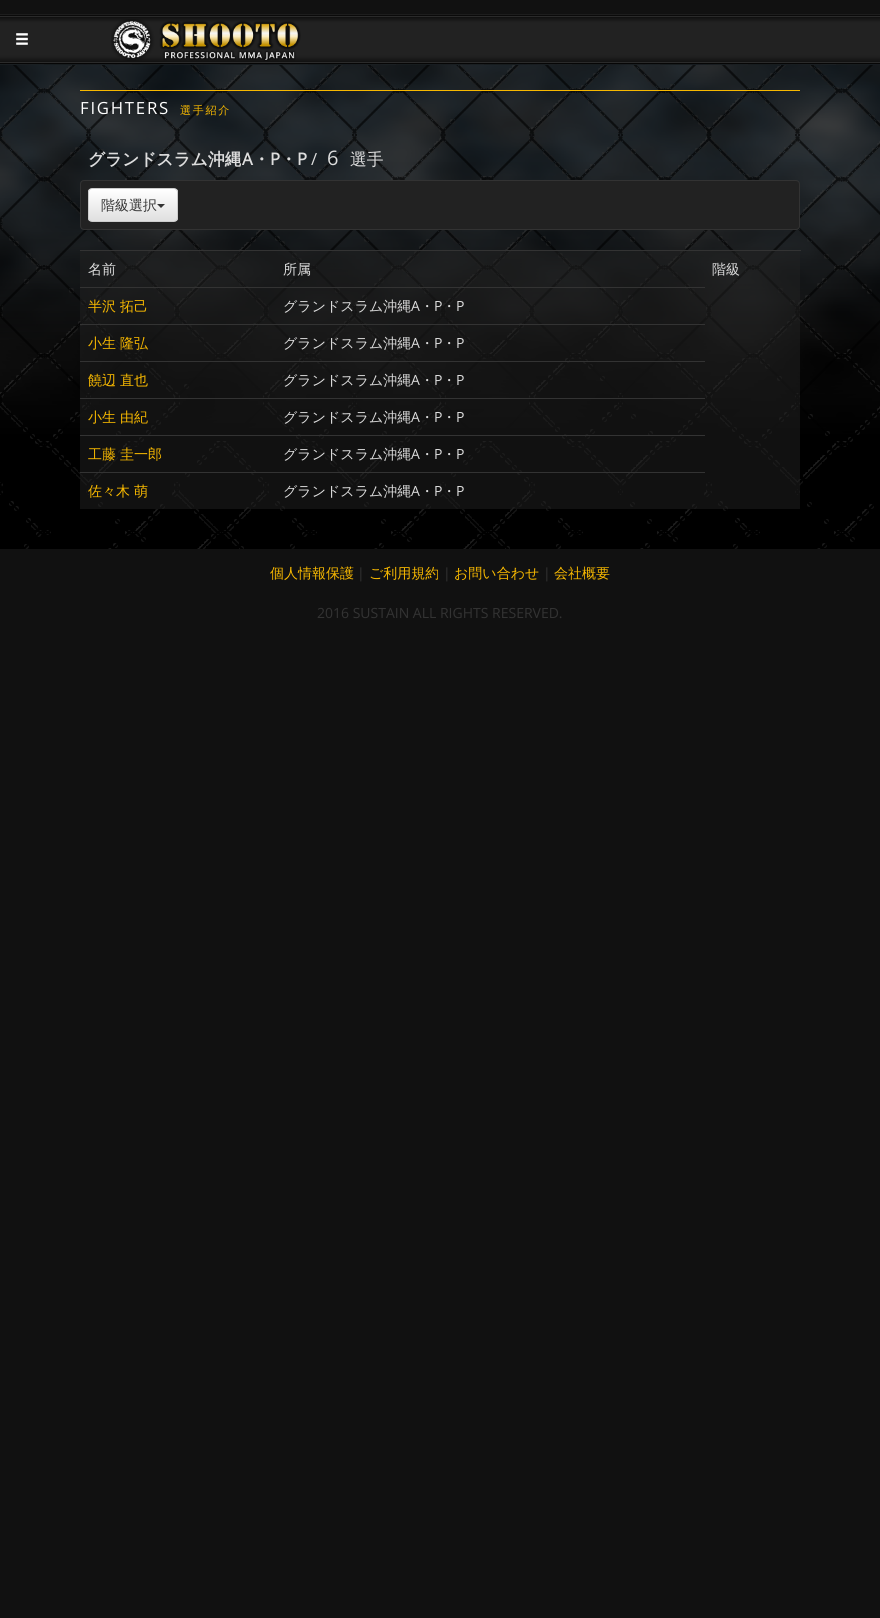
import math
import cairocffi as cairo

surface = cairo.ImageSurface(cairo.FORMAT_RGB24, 880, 1618)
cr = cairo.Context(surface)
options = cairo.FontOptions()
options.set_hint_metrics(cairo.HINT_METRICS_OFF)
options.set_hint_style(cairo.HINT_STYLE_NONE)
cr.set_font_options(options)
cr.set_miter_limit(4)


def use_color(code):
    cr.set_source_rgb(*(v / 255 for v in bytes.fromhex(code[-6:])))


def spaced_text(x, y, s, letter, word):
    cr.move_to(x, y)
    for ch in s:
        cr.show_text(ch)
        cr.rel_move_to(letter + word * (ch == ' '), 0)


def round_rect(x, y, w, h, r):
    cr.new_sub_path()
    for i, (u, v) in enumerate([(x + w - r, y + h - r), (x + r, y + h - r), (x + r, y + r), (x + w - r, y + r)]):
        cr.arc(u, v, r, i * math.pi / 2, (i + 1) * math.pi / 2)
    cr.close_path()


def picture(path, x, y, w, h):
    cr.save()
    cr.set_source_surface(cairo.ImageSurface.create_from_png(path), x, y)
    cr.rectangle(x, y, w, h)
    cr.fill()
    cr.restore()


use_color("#111111")
cr.paint()
picture("img1.png", 0, 65, 880, 484)
picture("img2.png", 0, 65, 880, 484)
picture("img3.png", 0, 0, 880, 65)
picture("img4.png", 16, 33, 12, 12)
picture("img5.png", 111, 19, 190, 42)
use_color("#f7b800")
cr.rectangle(80, 90, 720, 1)
cr.fill()
cr.select_font_face("Open Sans")
cr.set_font_size(16.75)
use_color("#ffffff")
spaced_text(80, 114, "FIGHTERS", 1.75, 0)
cr.select_font_face("WenQuanYi Zen Hei Medium")
cr.set_font_size(11)
use_color("#f7b800")
spaced_text(180, 114, "選手紹介", 1.75, 0)
cr.select_font_face("WenQuanYi Zen Hei", cairo.FONT_SLANT_NORMAL, cairo.FONT_WEIGHT_BOLD)
cr.set_font_size(16.75)
use_color("#dddddd")
cr.move_to(88, 165)
cr.show_text("グランドスラム沖縄")
cr.select_font_face("Open Sans", cairo.FONT_SLANT_NORMAL, cairo.FONT_WEIGHT_BOLD)
cr.move_to(242, 165)
cr.show_text("A")
cr.select_font_face("WenQuanYi Zen Hei", cairo.FONT_SLANT_NORMAL, cairo.FONT_WEIGHT_BOLD)
cr.move_to(253, 165)
cr.show_text("・")
cr.select_font_face("Open Sans", cairo.FONT_SLANT_NORMAL, cairo.FONT_WEIGHT_BOLD)
cr.move_to(270, 165)
cr.show_text("P")
cr.select_font_face("WenQuanYi Zen Hei", cairo.FONT_SLANT_NORMAL, cairo.FONT_WEIGHT_BOLD)
cr.move_to(280, 165)
cr.show_text("・")
cr.select_font_face("Open Sans", cairo.FONT_SLANT_NORMAL, cairo.FONT_WEIGHT_BOLD)
cr.move_to(297, 165)
cr.show_text("P")
cr.select_font_face("Open Sans")
cr.move_to(311, 165)
cr.show_text("/")
cr.set_font_size(20)
cr.move_to(327, 165)
cr.show_text("6")
cr.select_font_face("WenQuanYi Zen Hei Medium")
cr.set_font_size(16.75)
cr.move_to(350, 165)
cr.show_text("選手")
use_color("#222222")
round_rect(80.5, 180.5, 719, 49, 3.5)
cr.fill_preserve()
use_color("#333333")
cr.set_line_width(1)
cr.stroke()
cr.save()
round_rect(88, 188, 90, 34, 4)
cr.clip()
gradient = cairo.LinearGradient(133, 189, 133, 221)
gradient.add_color_stop_rgba(0, 1, 1, 1, 1)
gradient.add_color_stop_rgba(1, 0.878, 0.878, 0.878, 1)
cr.set_source(gradient)
cr.rectangle(88, 189, 90, 32)
cr.fill()
cr.restore()
use_color("#ffffff")
cr.new_path()
cr.move_to(92, 190)
cr.line_to(174, 190)
cr.curve_to(176, 190, 177, 191, 177, 193)
cr.curve_to(177, 185, 164, 189, 160, 189)
cr.line_to(106, 189)
cr.curve_to(102, 189, 89, 185, 89, 193)
cr.curve_to(89, 191, 90, 190, 92, 190)
cr.close_path()
cr.fill()
round_rect(88.5, 188.5, 89, 33, 3.5)
use_color("#cccccc")
cr.stroke()
cr.set_font_size(14)
use_color("#333333")
cr.move_to(101, 210)
cr.show_text("階級選択")
cr.new_path()
cr.move_to(157, 204)
cr.line_to(165, 204)
cr.line_to(161, 208)
cr.close_path()
cr.fill()
picture("img6.png", 80, 250, 720, 259)
use_color("#dddddd")
cr.move_to(88, 274)
cr.show_text("名前")
cr.move_to(283, 274)
cr.show_text("所属")
use_color("#333333")
cr.rectangle(800, 250, 1, 1)
cr.fill()
use_color("#dddddd")
cr.move_to(712, 274)
cr.show_text("階級")
use_color("#f7b800")
cr.move_to(88, 311)
cr.show_text("半沢")
cr.move_to(120, 311)
cr.show_text("拓己")
use_color("#333333")
cr.rectangle(704, 287, 1, 1)
cr.fill()
use_color("#dddddd")
cr.move_to(283, 311)
cr.show_text("グランドスラム沖縄")
cr.select_font_face("Open Sans")
cr.move_to(411, 311)
cr.show_text("A")
cr.select_font_face("WenQuanYi Zen Hei Medium")
cr.move_to(420, 311)
cr.show_text("・")
cr.select_font_face("Open Sans")
cr.move_to(434, 311)
cr.show_text("P")
cr.select_font_face("WenQuanYi Zen Hei Medium")
cr.move_to(442, 311)
cr.show_text("・")
cr.select_font_face("Open Sans")
cr.move_to(456, 311)
cr.show_text("P")
cr.select_font_face("WenQuanYi Zen Hei Medium")
use_color("#f7b800")
cr.move_to(88, 348)
cr.show_text("小生")
cr.move_to(120, 348)
cr.show_text("隆弘")
use_color("#333333")
cr.rectangle(704, 324, 1, 1)
cr.fill()
use_color("#dddddd")
cr.move_to(283, 348)
cr.show_text("グランドスラム沖縄")
cr.select_font_face("Open Sans")
cr.move_to(411, 348)
cr.show_text("A")
cr.select_font_face("WenQuanYi Zen Hei Medium")
cr.move_to(420, 348)
cr.show_text("・")
cr.select_font_face("Open Sans")
cr.move_to(434, 348)
cr.show_text("P")
cr.select_font_face("WenQuanYi Zen Hei Medium")
cr.move_to(442, 348)
cr.show_text("・")
cr.select_font_face("Open Sans")
cr.move_to(456, 348)
cr.show_text("P")
cr.select_font_face("WenQuanYi Zen Hei Medium")
use_color("#f7b800")
cr.move_to(88, 385)
cr.show_text("饒辺")
cr.move_to(120, 385)
cr.show_text("直也")
use_color("#333333")
cr.rectangle(704, 361, 1, 1)
cr.fill()
use_color("#dddddd")
cr.move_to(283, 385)
cr.show_text("グランドスラム沖縄")
cr.select_font_face("Open Sans")
cr.move_to(411, 385)
cr.show_text("A")
cr.select_font_face("WenQuanYi Zen Hei Medium")
cr.move_to(420, 385)
cr.show_text("・")
cr.select_font_face("Open Sans")
cr.move_to(434, 385)
cr.show_text("P")
cr.select_font_face("WenQuanYi Zen Hei Medium")
cr.move_to(442, 385)
cr.show_text("・")
cr.select_font_face("Open Sans")
cr.move_to(456, 385)
cr.show_text("P")
cr.select_font_face("WenQuanYi Zen Hei Medium")
use_color("#f7b800")
cr.move_to(88, 422)
cr.show_text("小生")
cr.move_to(120, 422)
cr.show_text("由紀")
use_color("#333333")
cr.rectangle(704, 398, 1, 1)
cr.fill()
use_color("#dddddd")
cr.move_to(283, 422)
cr.show_text("グランドスラム沖縄")
cr.select_font_face("Open Sans")
cr.move_to(411, 422)
cr.show_text("A")
cr.select_font_face("WenQuanYi Zen Hei Medium")
cr.move_to(420, 422)
cr.show_text("・")
cr.select_font_face("Open Sans")
cr.move_to(434, 422)
cr.show_text("P")
cr.select_font_face("WenQuanYi Zen Hei Medium")
cr.move_to(442, 422)
cr.show_text("・")
cr.select_font_face("Open Sans")
cr.move_to(456, 422)
cr.show_text("P")
cr.select_font_face("WenQuanYi Zen Hei Medium")
use_color("#f7b800")
cr.move_to(88, 459)
cr.show_text("工藤")
cr.move_to(120, 459)
cr.show_text("圭一郎")
use_color("#333333")
cr.rectangle(704, 435, 1, 1)
cr.fill()
use_color("#dddddd")
cr.move_to(283, 459)
cr.show_text("グランドスラム沖縄")
cr.select_font_face("Open Sans")
cr.move_to(411, 459)
cr.show_text("A")
cr.select_font_face("WenQuanYi Zen Hei Medium")
cr.move_to(420, 459)
cr.show_text("・")
cr.select_font_face("Open Sans")
cr.move_to(434, 459)
cr.show_text("P")
cr.select_font_face("WenQuanYi Zen Hei Medium")
cr.move_to(442, 459)
cr.show_text("・")
cr.select_font_face("Open Sans")
cr.move_to(456, 459)
cr.show_text("P")
cr.select_font_face("WenQuanYi Zen Hei Medium")
use_color("#f7b800")
cr.move_to(88, 496)
cr.show_text("佐々木")
cr.move_to(134, 496)
cr.show_text("萌")
use_color("#333333")
cr.rectangle(704, 472, 1, 1)
cr.fill()
use_color("#dddddd")
cr.move_to(283, 496)
cr.show_text("グランドスラム沖縄")
cr.select_font_face("Open Sans")
cr.move_to(411, 496)
cr.show_text("A")
cr.select_font_face("WenQuanYi Zen Hei Medium")
cr.move_to(420, 496)
cr.show_text("・")
cr.select_font_face("Open Sans")
cr.move_to(434, 496)
cr.show_text("P")
cr.select_font_face("WenQuanYi Zen Hei Medium")
cr.move_to(442, 496)
cr.show_text("・")
cr.select_font_face("Open Sans")
cr.move_to(456, 496)
cr.show_text("P")
cr.select_font_face("WenQuanYi Zen Hei Medium")
use_color("#f7b800")
cr.move_to(270, 578)
cr.show_text("個人情報保護")
cr.select_font_face("Open Sans")
use_color("#333333")
cr.move_to(357, 578)
cr.show_text("|")
cr.select_font_face("WenQuanYi Zen Hei Medium")
use_color("#f7b800")
cr.move_to(369, 578)
cr.show_text("ご利用規約")
cr.select_font_face("Open Sans")
use_color("#333333")
cr.move_to(443, 578)
cr.show_text("|")
cr.select_font_face("WenQuanYi Zen Hei Medium")
use_color("#f7b800")
cr.move_to(454, 578)
cr.show_text("お問い合わせ")
cr.select_font_face("Open Sans")
use_color("#333333")
cr.move_to(543, 578)
cr.show_text("|")
cr.select_font_face("WenQuanYi Zen Hei Medium")
use_color("#f7b800")
cr.move_to(554, 578)
cr.show_text("会社概要")
cr.select_font_face("Open Sans")
use_color("#333333")
cr.move_to(317, 618)
cr.show_text("2016 SUSTAIN ALL RIGHTS RESERVED.")
surface.write_to_png("result.png")
